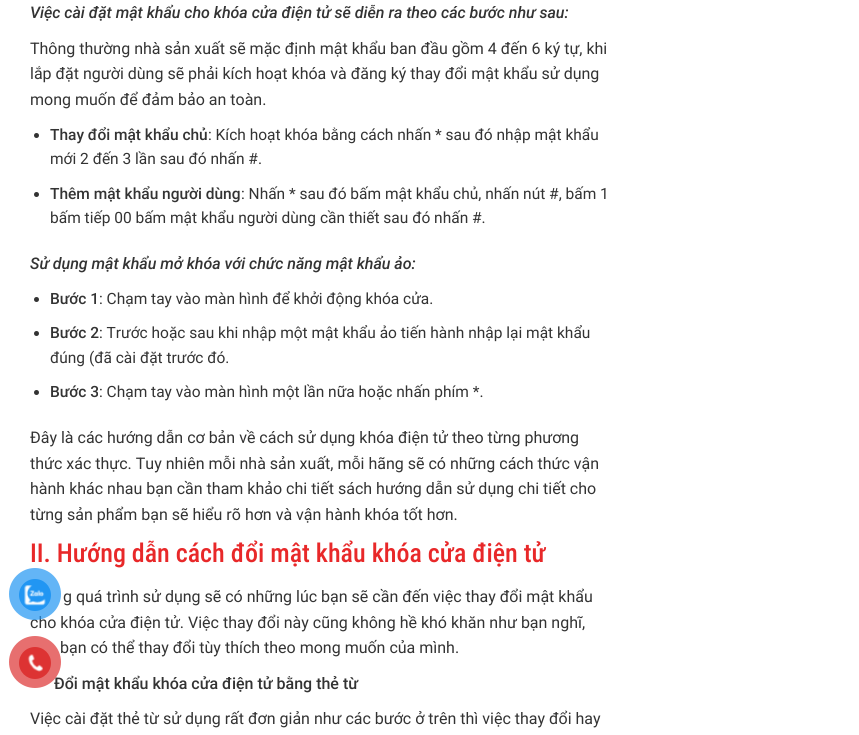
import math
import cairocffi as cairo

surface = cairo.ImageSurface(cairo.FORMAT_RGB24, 859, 735)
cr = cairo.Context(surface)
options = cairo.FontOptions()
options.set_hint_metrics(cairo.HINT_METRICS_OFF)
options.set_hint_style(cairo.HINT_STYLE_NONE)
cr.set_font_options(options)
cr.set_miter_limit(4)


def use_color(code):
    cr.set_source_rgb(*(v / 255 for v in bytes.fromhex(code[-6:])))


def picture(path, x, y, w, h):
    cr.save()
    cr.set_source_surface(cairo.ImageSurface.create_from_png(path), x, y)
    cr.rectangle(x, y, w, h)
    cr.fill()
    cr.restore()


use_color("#ffffff")
cr.paint()
cr.select_font_face("Roboto Medium", cairo.FONT_SLANT_ITALIC)
cr.set_font_size(16)
use_color("#333333")
cr.move_to(30, 18)
cr.show_text("Việc cài đặt mật khẩu cho khóa cửa điện tử sẽ diễn ra theo các bước như sau:")
cr.select_font_face("Roboto")
cr.move_to(30, 54)
cr.show_text("Thông thường nhà sản xuất sẽ mặc định mật khẩu ban đầu gồm 4 đến 6 ký tự, khi")
cr.move_to(30, 79)
cr.show_text("lắp đặt người dùng sẽ phải kích hoạt khóa và đăng ký thay đổi mật khẩu sử dụng")
cr.move_to(30, 105)
cr.show_text("mong muốn để đảm bảo an toàn.")
cr.new_path()
cr.arc(36.5, 135.5, 2.5, 0, 2 * math.pi)
cr.fill()
cr.select_font_face("Roboto Medium")
cr.set_font_size(15.5)
cr.move_to(50, 140)
cr.show_text("Thay đổi mật khẩu chủ")
cr.select_font_face("Roboto")
cr.move_to(208, 140)
cr.show_text(": Kích hoạt khóa bằng cách nhấn * sau đó nhập mật khẩu")
cr.move_to(50, 164)
cr.show_text("mới 2 đến 3 lần sau đó nhấn #.")
cr.new_path()
cr.arc(36.5, 194.5, 2.5, 0, 2 * math.pi)
cr.fill()
cr.select_font_face("Roboto Medium")
cr.move_to(50, 199)
cr.show_text("Thêm mật khẩu người dùng")
cr.select_font_face("Roboto")
cr.move_to(241, 199)
cr.show_text(": Nhấn * sau đó bấm mật khẩu chủ, nhấn nút #, bấm 1")
cr.move_to(50, 223)
cr.show_text("bấm tiếp 00 bấm mật khẩu người dùng cần thiết sau đó nhấn #.")
cr.select_font_face("Roboto Medium", cairo.FONT_SLANT_ITALIC)
cr.set_font_size(16)
cr.move_to(30, 269)
cr.show_text("Sử dụng mật khẩu mở khóa với chức năng mật khẩu ảo:")
cr.new_path()
cr.arc(36.5, 299.5, 2.5, 0, 2 * math.pi)
cr.fill()
cr.select_font_face("Roboto Medium")
cr.set_font_size(15.5)
cr.move_to(50, 304)
cr.show_text("Bước 1")
cr.select_font_face("Roboto")
cr.move_to(99, 304)
cr.show_text(": Chạm tay vào màn hình để khởi động khóa cửa.")
cr.new_path()
cr.arc(36.5, 333.5, 2.5, 0, 2 * math.pi)
cr.fill()
cr.select_font_face("Roboto Medium")
cr.move_to(50, 338)
cr.show_text("Bước 2")
cr.select_font_face("Roboto")
cr.move_to(99, 338)
cr.show_text(": Trước hoặc sau khi nhập một mật khẩu ảo tiến hành nhập lại mật khẩu")
cr.move_to(50, 363)
cr.show_text("đúng (đã cài đặt trước đó.")
cr.new_path()
cr.arc(36.5, 392.5, 2.5, 0, 2 * math.pi)
cr.fill()
cr.select_font_face("Roboto Medium")
cr.move_to(50, 397)
cr.show_text("Bước 3")
cr.select_font_face("Roboto")
cr.move_to(99, 397)
cr.show_text(": Chạm tay vào màn hình một lần nữa hoặc nhấn phím *.")
cr.set_font_size(16)
cr.move_to(30, 443)
cr.show_text("Đây là các hướng dẫn cơ bản về cách sử dụng khóa điện tử theo từng phương")
cr.move_to(30, 469)
cr.show_text("thức xác thực. Tuy nhiên mỗi nhà sản xuất, mỗi hãng sẽ có những cách thức vận")
cr.move_to(30, 494)
cr.show_text("hành khác nhau bạn cần tham khảo chi tiết sách hướng dẫn sử dụng chi tiết cho")
cr.move_to(30, 520)
cr.show_text("từng sản phẩm bạn sẽ hiểu rõ hơn và vận hành khóa tốt hơn.")
cr.select_font_face("Roboto Condensed Medium")
cr.set_font_size(26)
use_color("#e82829")
cr.move_to(30, 562)
cr.show_text("II. Hướng dẫn cách đổi mật khẩu khóa cửa điện tử")
cr.select_font_face("Roboto")
cr.set_font_size(16)
use_color("#333333")
cr.move_to(63, 602)
cr.show_text("g quá trình sử dụng sẽ có những lúc bạn sẽ cần đến việc thay đổi mật khẩu")
cr.move_to(30, 628)
cr.show_text("cho khóa cửa điện tử. Việc thay đổi này cũng không hề khó khăn như bạn nghĩ,")
cr.move_to(60, 653)
cr.show_text("bạn có thể thay đổi tùy thích theo mong muốn của mình.")
cr.select_font_face("Roboto Medium")
cr.move_to(54, 689)
cr.show_text("Đổi mật khẩu khóa cửa điện tử bằng thẻ từ")
cr.select_font_face("Roboto")
cr.move_to(30, 724)
cr.show_text("Việc cài đặt thẻ từ sử dụng rất đơn giản như các bước ở trên thì việc thay đổi hay")
cr.set_source_rgba(0.129, 0.588, 0.953, 0.7)
cr.new_path()
cr.arc(35, 594, 26, 0, 2 * math.pi)
cr.fill()
use_color("#2196f3")
cr.arc(35, 595, 16, 0, 2 * math.pi)
cr.fill()
picture("img1.png", 24, 585, 22, 21)
cr.set_source_rgba(0.867, 0.2, 0.2, 0.7)
cr.arc(35, 662, 26, 0, 2 * math.pi)
cr.fill()
use_color("#dd3333")
cr.arc(35, 663, 16, 0, 2 * math.pi)
cr.fill()
picture("img2.png", 27, 654, 16, 18)
surface.write_to_png("result.png")
